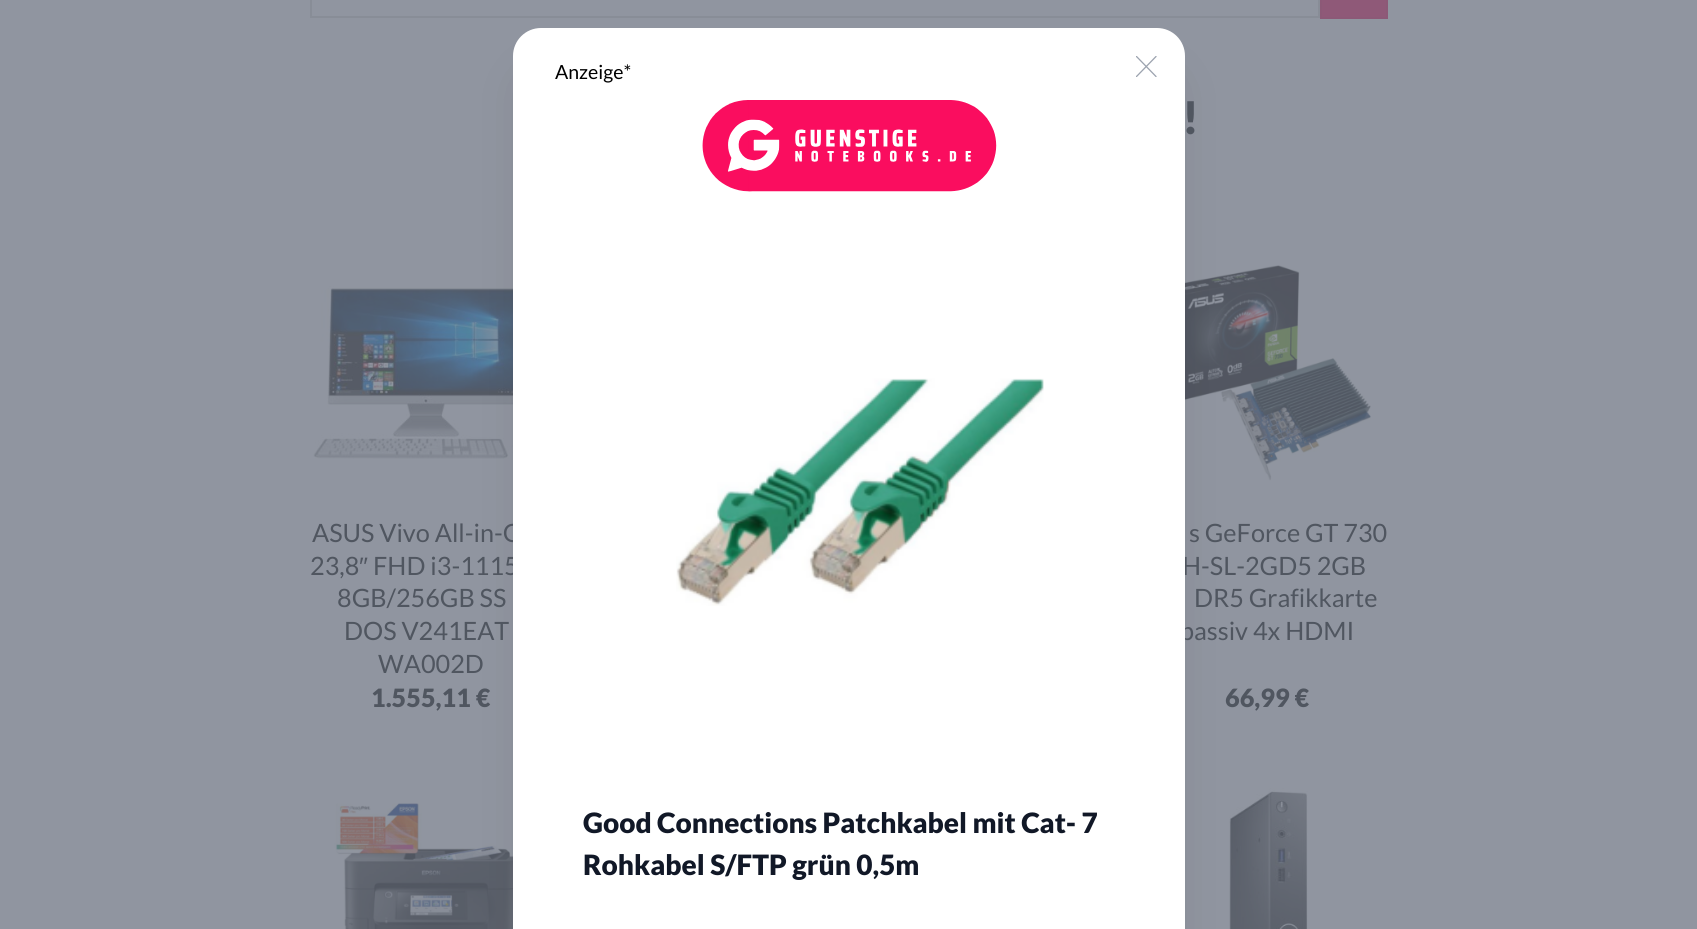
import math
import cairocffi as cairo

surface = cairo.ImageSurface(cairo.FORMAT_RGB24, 1697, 929)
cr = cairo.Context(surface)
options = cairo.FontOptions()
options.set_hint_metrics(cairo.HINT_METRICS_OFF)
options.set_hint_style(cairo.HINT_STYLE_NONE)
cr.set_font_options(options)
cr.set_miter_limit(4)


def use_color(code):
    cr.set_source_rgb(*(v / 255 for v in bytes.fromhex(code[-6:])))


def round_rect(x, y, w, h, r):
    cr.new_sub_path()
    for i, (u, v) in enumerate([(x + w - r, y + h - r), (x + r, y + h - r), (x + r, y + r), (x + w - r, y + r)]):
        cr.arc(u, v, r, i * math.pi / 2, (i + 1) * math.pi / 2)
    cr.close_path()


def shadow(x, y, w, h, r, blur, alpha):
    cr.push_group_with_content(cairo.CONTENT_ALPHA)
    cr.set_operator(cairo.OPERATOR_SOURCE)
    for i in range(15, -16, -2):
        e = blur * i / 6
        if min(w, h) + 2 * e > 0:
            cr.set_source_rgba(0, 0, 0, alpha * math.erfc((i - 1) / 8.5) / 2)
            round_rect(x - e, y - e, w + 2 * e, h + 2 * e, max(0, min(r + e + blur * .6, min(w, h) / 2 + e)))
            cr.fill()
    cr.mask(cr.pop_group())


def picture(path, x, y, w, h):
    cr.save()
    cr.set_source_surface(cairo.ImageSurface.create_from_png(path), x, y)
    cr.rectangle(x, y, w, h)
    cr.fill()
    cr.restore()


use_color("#9095a0")
cr.paint()
cr.rectangle(311, -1, 1008, 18)
use_color("#888d97")
cr.stroke()
picture("img3.png", 313, 286, 200, 173)
picture("img4.png", 1185, 265, 186, 216)
picture("img5.png", 334, 803, 179, 126)
picture("img6.png", 1229, 788, 79, 141)
use_color("#000000")
shadow(522, 72, 654, 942, 19, 22, 0.1)
cr.select_font_face("Lato")
cr.set_font_size(25.25)
use_color("#505660")
cr.move_to(312, 542)
cr.show_text("ASUS Vivo All-in-O")
cr.move_to(373, 575)
cr.show_text("FHD i3-1115")
cr.move_to(1182, 575)
cr.show_text("H-SL-2GD5 2GB")
cr.move_to(1180, 640)
cr.show_text("passiv 4x HDMI")
use_color("#ffffff")
cr.new_path()
cr.move_to(541, 28)
cr.line_to(1157, 28)
cr.curve_to(1172.5, 28, 1185, 40.5, 1185, 56)
cr.line_to(1185, 929)
cr.line_to(513, 929)
cr.line_to(513, 56)
cr.curve_to(513, 40.5, 525.5, 28, 541, 28)
cr.close_path()
cr.fill()
cr.set_font_size(19.5)
use_color("#000000")
cr.move_to(555, 79)
cr.show_text("Anzeige*")
cr.save()
cr.rectangle(1136, 56, 21, 21)
cr.clip()
cr.new_path()
cr.move_to(1136.5, 76.5)
cr.line_to(1156, 56.5)
cr.move_to(1136.5, 56.5)
cr.line_to(1156, 76.5)
use_color("#9ca3af")
cr.set_line_width(1.3)
cr.set_line_cap(cairo.LINE_CAP_ROUND)
cr.set_line_join(cairo.LINE_JOIN_ROUND)
cr.stroke()
cr.restore()
picture("img1.png", 702, 100, 295, 92)
picture("img2.png", 676, 378, 368, 228)
cr.select_font_face("Lato Black")
cr.set_font_size(28)
use_color("#111827")
cr.move_to(583, 833)
cr.show_text("Good Connections Patchkabel mit Cat- 7")
cr.move_to(583, 875)
cr.show_text("Rohkabel S/FTP grün 0,5m")
use_color("#8f5978")
cr.rectangle(1321, -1, 66, 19)
cr.fill_preserve()
use_color("#8c5977")
cr.stroke()
cr.set_font_size(45)
use_color("#505660")
cr.move_to(1182, 134)
cr.show_text("!")
cr.select_font_face("Lato")
cr.set_font_size(25.25)
cr.move_to(310, 575)
cr.show_text("23,8")
cr.select_font_face("Liberation Sans")
cr.move_to(359, 575)
cr.show_text("″")
cr.select_font_face("Lato")
cr.move_to(337, 607)
cr.show_text("8GB/256GB SS")
cr.move_to(344, 640)
cr.show_text("DOS V241EAT")
cr.move_to(378, 673)
cr.show_text("WA002D")
cr.select_font_face("Lato Black")
cr.move_to(371, 707)
cr.show_text("1.555,11 €")
cr.select_font_face("Lato")
cr.move_to(1189, 542)
cr.show_text("s GeForce GT 730")
cr.move_to(1194, 607)
cr.show_text("DR5 Grafikkarte")
cr.select_font_face("Lato Black")
cr.move_to(1225, 707)
cr.show_text("66,99 €")
surface.write_to_png("result.png")
